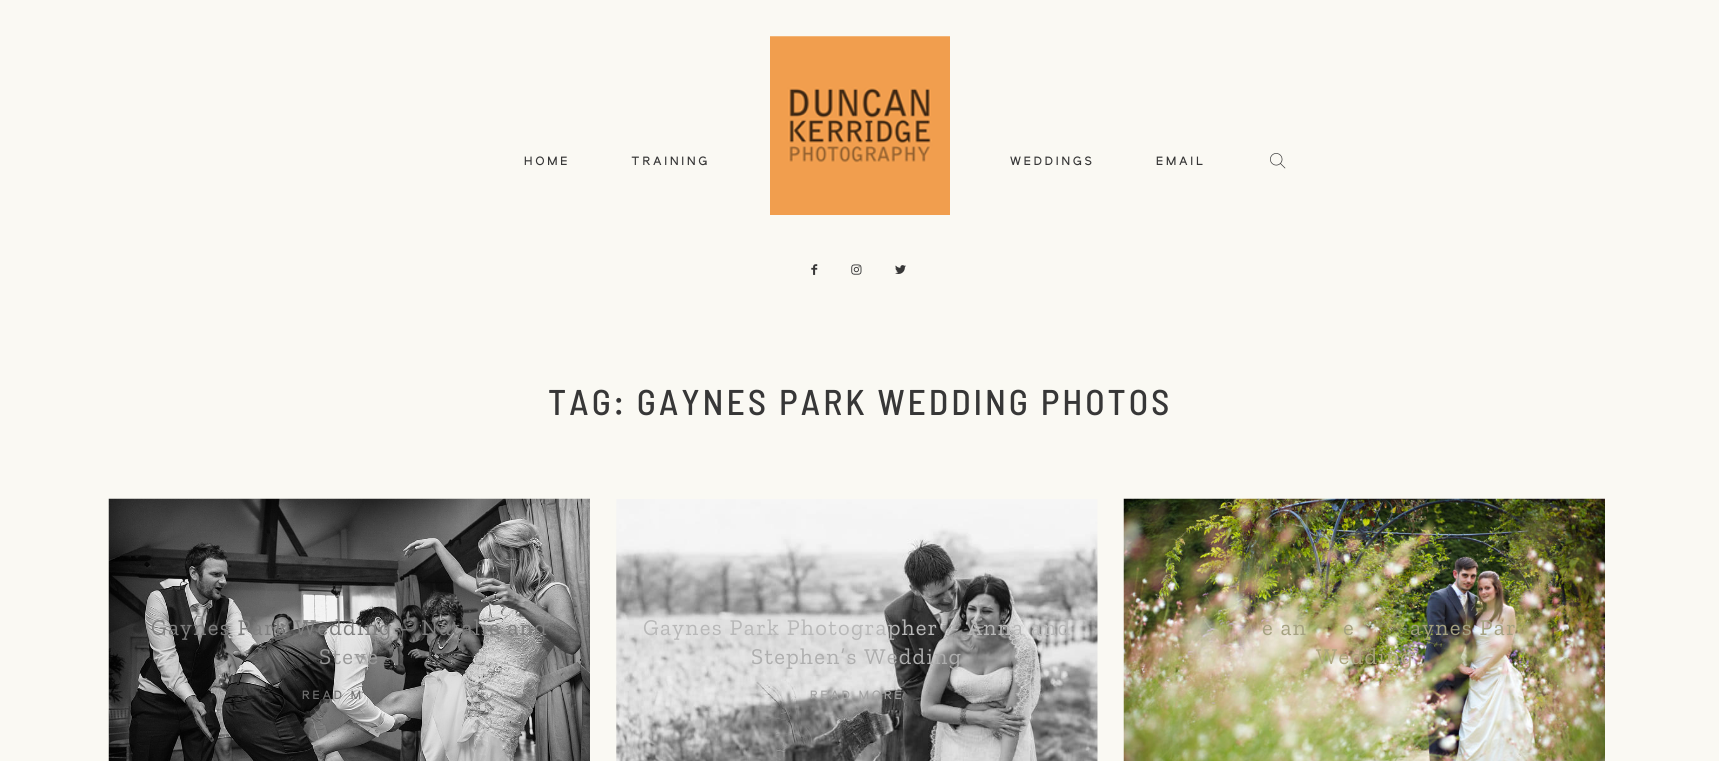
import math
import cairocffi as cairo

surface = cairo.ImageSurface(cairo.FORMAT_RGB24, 1719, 761)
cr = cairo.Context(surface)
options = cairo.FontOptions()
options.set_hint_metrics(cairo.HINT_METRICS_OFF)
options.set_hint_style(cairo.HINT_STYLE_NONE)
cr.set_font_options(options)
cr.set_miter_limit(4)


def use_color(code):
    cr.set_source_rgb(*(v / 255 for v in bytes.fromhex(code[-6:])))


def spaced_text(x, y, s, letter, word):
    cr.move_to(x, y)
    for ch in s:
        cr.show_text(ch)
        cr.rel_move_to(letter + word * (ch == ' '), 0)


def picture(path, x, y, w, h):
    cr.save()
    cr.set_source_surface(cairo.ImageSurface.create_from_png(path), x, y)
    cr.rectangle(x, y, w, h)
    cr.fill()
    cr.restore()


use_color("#faf9f3")
cr.paint()
cr.select_font_face("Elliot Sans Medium")
cr.set_font_size(12)
use_color("#373737")
spaced_text(524, 165, "HOME", 2.75, 0)
spaced_text(631, 165, "TRAINING", 2.75, 0)
picture("img1.png", 770, 36, 180, 179)
picture("img2.png", 811, 264, 7, 11)
picture("img3.png", 851, 264, 11, 11)
picture("img4.png", 895, 265, 11, 9)
spaced_text(1010, 165, "WEDDINGS", 2.75, 0)
spaced_text(1156, 165, "EMAIL", 2.75, 0)
picture("img5.png", 1270, 153, 16, 16)
cr.select_font_face("Barlow Semi Condensed Medium")
cr.set_font_size(35.8)
spaced_text(548, 415, "TAG: GAYNES PARK WEDDING PHOTOS", 2.9, 0)
picture("img6.png", 108, 498, 482, 263)
cr.select_font_face("Zilla Slab")
cr.set_font_size(22.7)
use_color("#7e7e7e")
spaced_text(151, 635, "Gaynes Park Wedding – Natalie and", 1.35, 0)
use_color("#999999")
spaced_text(319, 664, "Steve", 1.35, 0)
cr.select_font_face("Elliot Sans Medium")
cr.set_font_size(12)
use_color("#717171")
spaced_text(302, 699, "READ M", 2.75, 0)
picture("img7.png", 616, 499, 482, 262)
cr.select_font_face("Zilla Slab")
cr.set_font_size(22.7)
use_color("#b8b8b8")
spaced_text(643, 635, "Gaynes Park Photographer – Anna and", 1.35, 0)
use_color("#aeaeae")
spaced_text(751, 664, "Stephen’s Wedding", 1.35, 0)
cr.select_font_face("Elliot Sans Medium")
cr.set_font_size(12)
use_color("#a1a1a1")
spaced_text(810, 699, "READ MORE", 2.75, 0)
picture("img8.png", 1123, 498, 482, 263)
cr.select_font_face("Zilla Slab")
cr.set_font_size(22.7)
use_color("#a4a180")
spaced_text(1262, 635, "e an", 1.35, 0)
spaced_text(1343, 635, "e", 1.35, 0)
spaced_text(1410, 635, "aynes Par", 1.35, 0)
use_color("#ada67e")
spaced_text(1316, 664, "Wedding", 1.35, 0)
surface.write_to_png("result.png")
